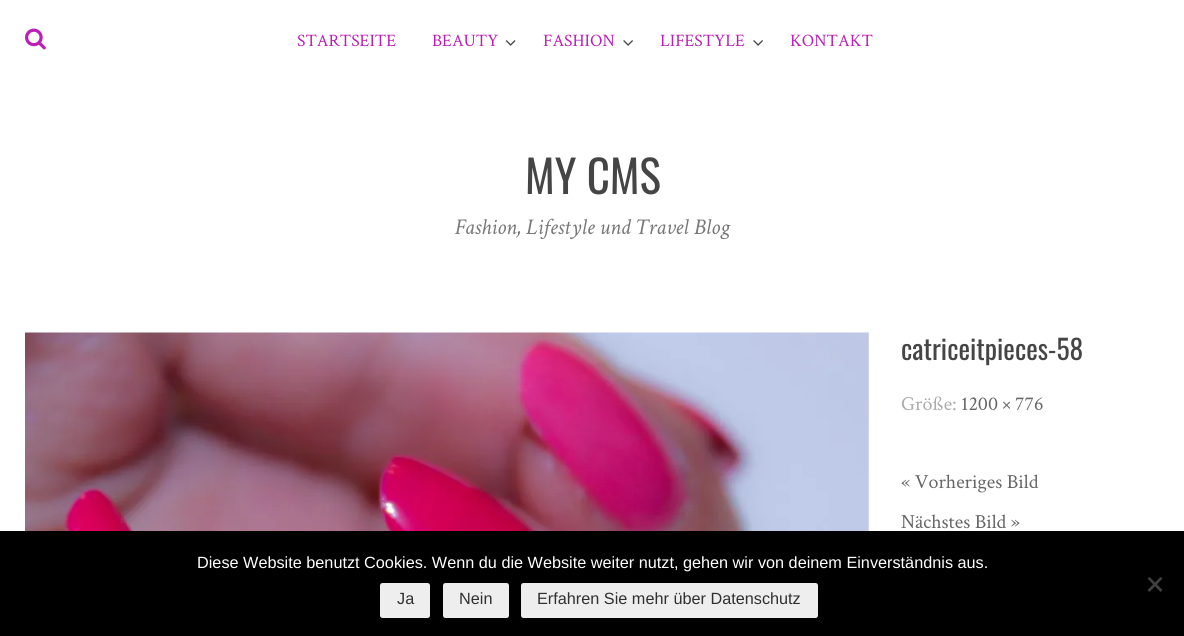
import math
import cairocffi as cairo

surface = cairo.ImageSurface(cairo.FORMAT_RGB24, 1184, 636)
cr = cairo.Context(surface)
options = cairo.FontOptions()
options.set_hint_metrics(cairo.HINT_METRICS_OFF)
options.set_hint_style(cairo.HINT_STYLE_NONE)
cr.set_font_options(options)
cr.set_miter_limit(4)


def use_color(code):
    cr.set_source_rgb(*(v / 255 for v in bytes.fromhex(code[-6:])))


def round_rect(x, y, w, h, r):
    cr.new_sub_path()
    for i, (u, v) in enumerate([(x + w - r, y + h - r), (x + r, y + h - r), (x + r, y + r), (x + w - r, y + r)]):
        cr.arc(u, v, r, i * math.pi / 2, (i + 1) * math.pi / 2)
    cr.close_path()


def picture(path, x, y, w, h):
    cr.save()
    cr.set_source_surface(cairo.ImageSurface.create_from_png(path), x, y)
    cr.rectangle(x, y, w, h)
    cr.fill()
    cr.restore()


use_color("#ffffff")
cr.paint()
picture("img1.png", 25, 28, 21, 22)
cr.select_font_face("Crimson Text")
cr.set_font_size(17.5)
use_color("#bc1eb7")
cr.move_to(297, 46)
cr.show_text("STARTSEITE")
cr.move_to(432, 46)
cr.show_text("BEAUTY")
picture("img2.png", 505, 40, 11, 6)
cr.move_to(543, 46)
cr.show_text("FASHION")
picture("img3.png", 623, 40, 10, 6)
cr.move_to(660, 46)
cr.show_text("LIFESTYLE")
picture("img3.png", 753, 40, 10, 6)
cr.move_to(790, 46)
cr.show_text("KONTAKT")
cr.select_font_face("Oswald")
cr.set_font_size(45)
use_color("#454545")
cr.move_to(525, 194)
cr.show_text("MY CMS")
cr.select_font_face("Crimson Text", cairo.FONT_SLANT_ITALIC)
cr.set_font_size(22.5)
use_color("#777777")
cr.move_to(455, 234)
cr.show_text("Fashion, Lifestyle und Travel Blog")
picture("img4.png", 25, 332, 844, 199)
cr.select_font_face("Oswald")
cr.set_font_size(27.5)
use_color("#454545")
cr.move_to(901, 360)
cr.show_text("catriceitpieces-58")
cr.select_font_face("Crimson Text")
cr.set_font_size(20)
use_color("#aaaaaa")
cr.move_to(901, 410)
cr.show_text("Größe:")
use_color("#666666")
cr.move_to(961, 410)
cr.show_text("1200 × 776")
cr.move_to(901, 488)
cr.show_text("« Vorheriges Bild")
cr.move_to(901, 528)
cr.show_text("Nächstes Bild »")
use_color("#000000")
cr.rectangle(0, 531, 1184, 105)
cr.fill()
cr.select_font_face("Liberation Sans")
cr.set_font_size(16.25)
use_color("#ffffff")
cr.move_to(197, 568)
cr.show_text("Diese Website benutzt Cookies. Wenn du die Website weiter nutzt, gehen wir von deinem Einverständnis aus.")
use_color("#404040")
cr.new_path()
cr.move_to(1160.5, 577)
cr.line_to(1162.5, 578.5)
cr.line_to(1149.5, 592)
cr.line_to(1147.5, 590)
cr.close_path()
cr.fill()
cr.new_path()
cr.move_to(1147.5, 578.5)
cr.line_to(1149.5, 577)
cr.line_to(1162.5, 590)
cr.line_to(1160.5, 592)
cr.close_path()
cr.fill()
use_color("#eeeeee")
round_rect(380, 583, 50, 35, 2.5)
cr.fill()
use_color("#303030")
cr.move_to(397, 604)
cr.show_text("Ja")
use_color("#eeeeee")
round_rect(443, 583, 66, 35, 2.5)
cr.fill()
use_color("#303030")
cr.move_to(459, 604)
cr.show_text("Nein")
use_color("#eeeeee")
round_rect(521, 583, 297, 35, 2.5)
cr.fill()
use_color("#303030")
cr.move_to(537, 604)
cr.show_text("Erfahren Sie mehr über Datenschutz")
surface.write_to_png("result.png")
